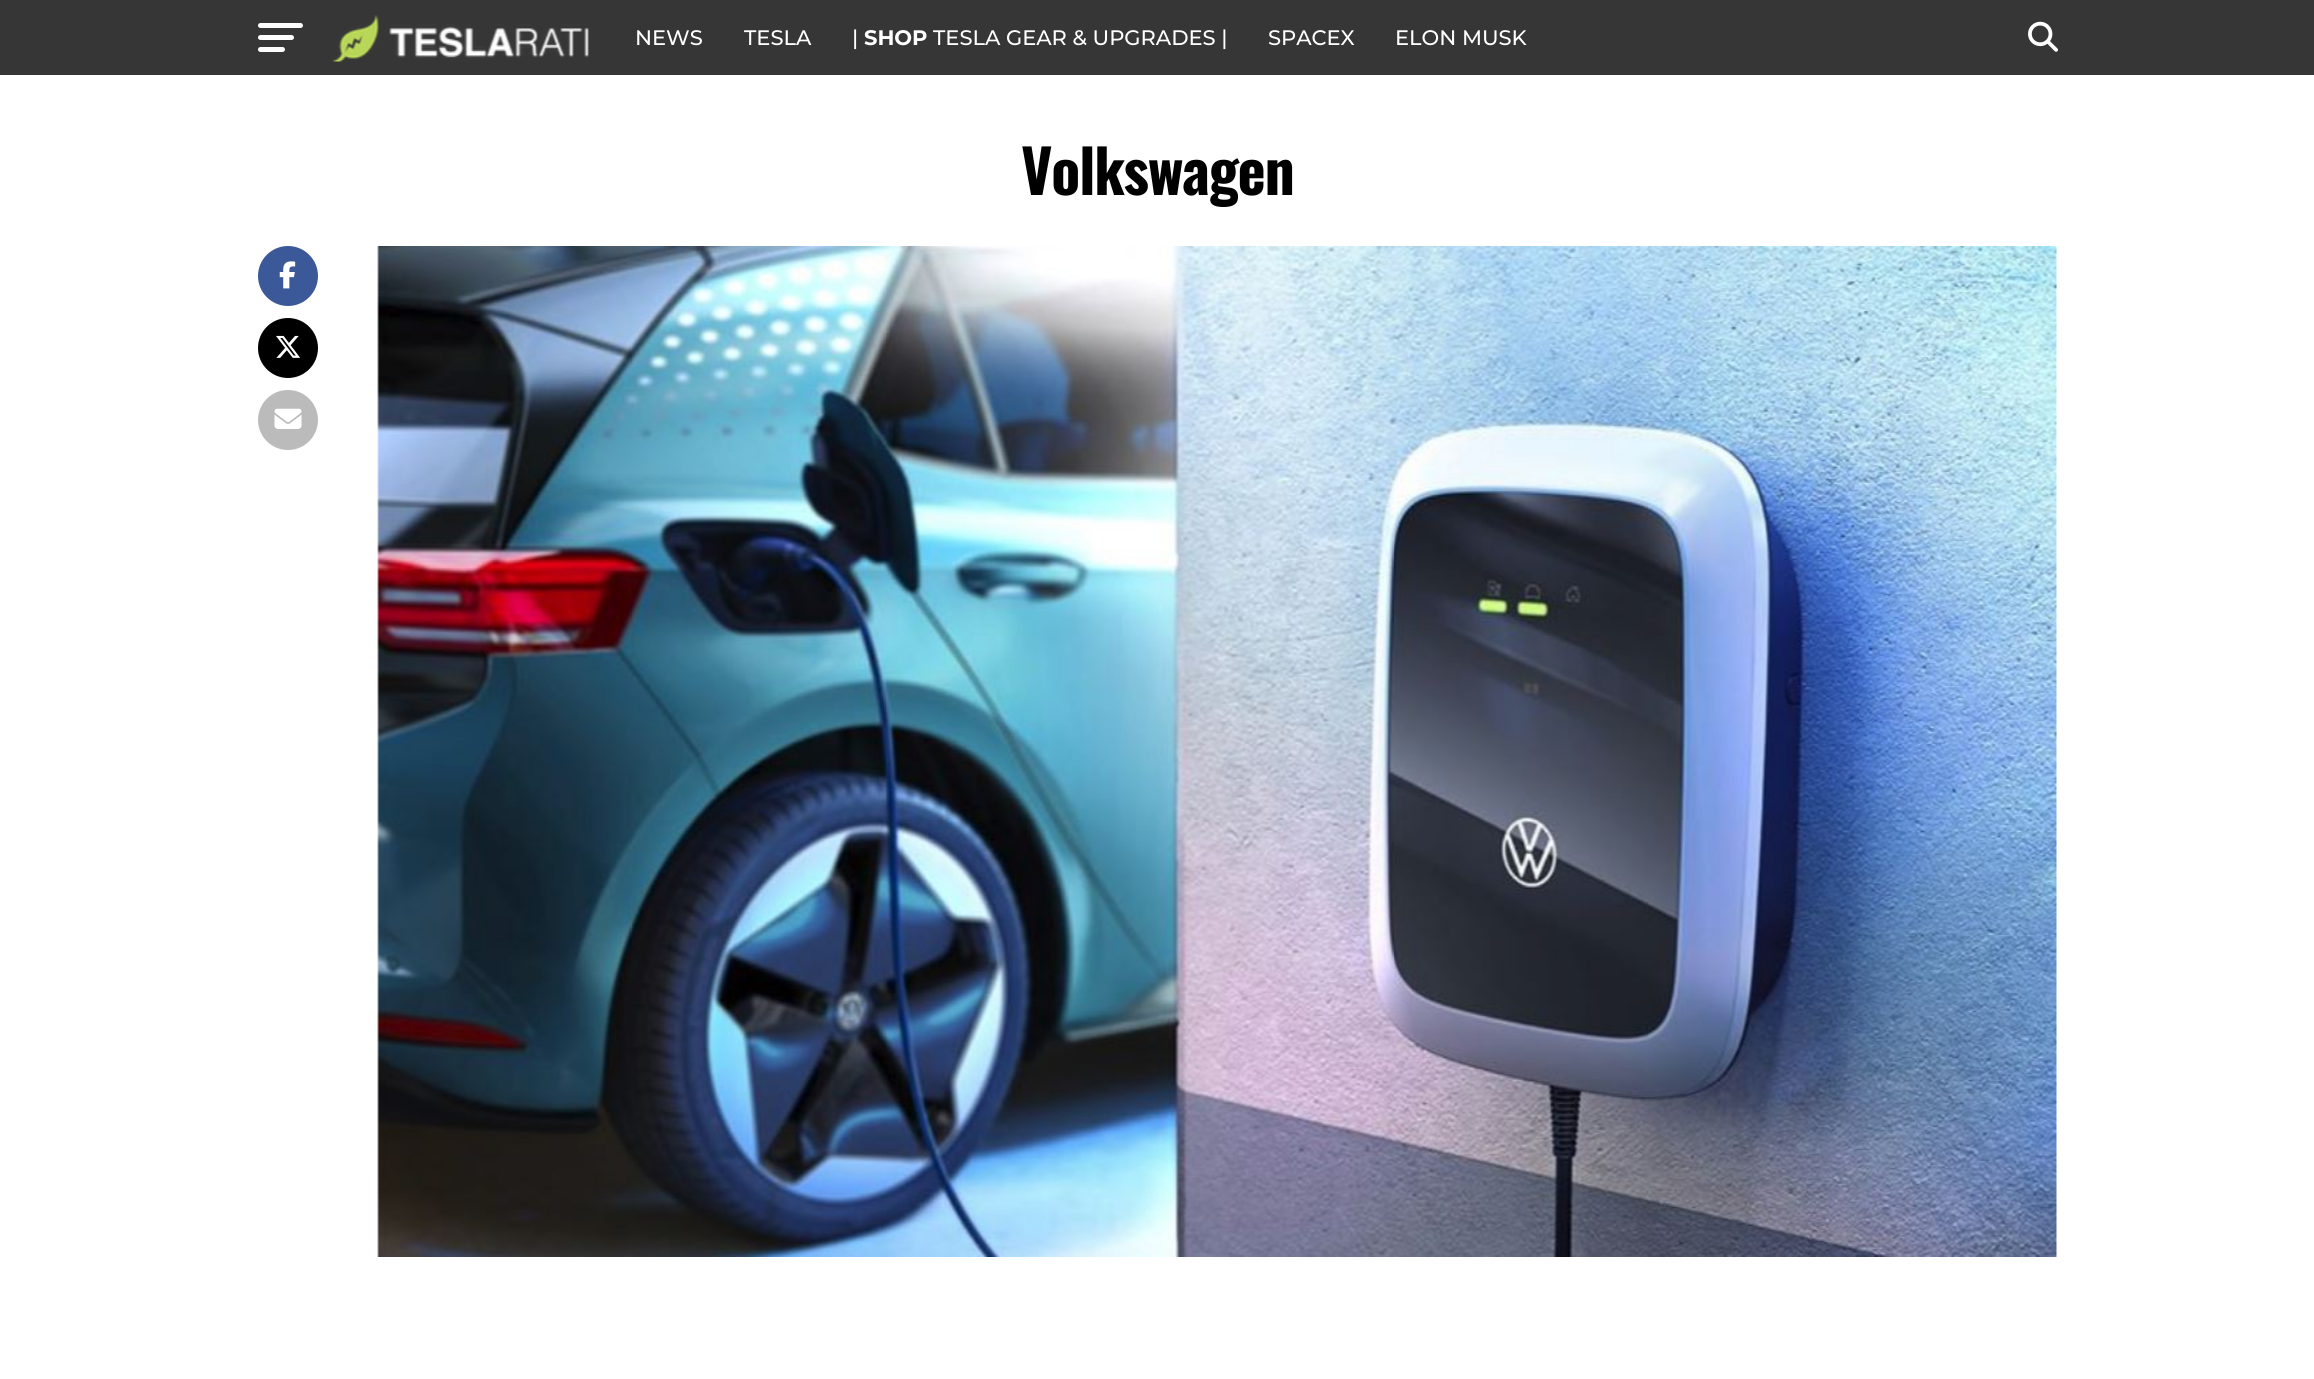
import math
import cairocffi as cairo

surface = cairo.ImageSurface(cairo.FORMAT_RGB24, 2314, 1379)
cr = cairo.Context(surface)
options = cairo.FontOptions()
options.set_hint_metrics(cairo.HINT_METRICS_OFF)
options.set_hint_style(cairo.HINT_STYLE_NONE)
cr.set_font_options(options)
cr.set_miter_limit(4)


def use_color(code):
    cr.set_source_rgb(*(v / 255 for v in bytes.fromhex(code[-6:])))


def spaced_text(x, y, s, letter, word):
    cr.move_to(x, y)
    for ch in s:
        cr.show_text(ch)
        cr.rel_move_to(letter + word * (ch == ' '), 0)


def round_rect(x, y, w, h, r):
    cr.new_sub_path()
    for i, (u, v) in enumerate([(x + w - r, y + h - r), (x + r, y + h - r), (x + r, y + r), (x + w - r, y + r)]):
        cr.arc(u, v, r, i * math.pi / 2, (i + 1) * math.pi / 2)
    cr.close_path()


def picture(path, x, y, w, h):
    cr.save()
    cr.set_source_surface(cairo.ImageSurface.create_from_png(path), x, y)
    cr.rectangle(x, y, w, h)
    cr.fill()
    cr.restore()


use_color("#ffffff")
cr.paint()
use_color("#363636")
cr.rectangle(0, 0, 2314, 75)
cr.fill()
use_color("#ffffff")
round_rect(258, 23, 45, 5, 2.5)
cr.fill()
round_rect(258, 35, 36, 5, 2.5)
cr.fill()
round_rect(258, 47, 27, 5, 2.5)
cr.fill()
picture("img1.png", 332, 15, 257, 47)
cr.select_font_face("Montserrat Medium")
cr.set_font_size(21)
cr.move_to(635, 45)
cr.show_text("NEWS")
cr.move_to(744, 45)
cr.show_text("TESLA")
cr.move_to(852, 45)
cr.show_text("|")
cr.select_font_face("Montserrat", cairo.FONT_SLANT_NORMAL, cairo.FONT_WEIGHT_BOLD)
cr.move_to(864, 45)
cr.show_text("SHOP")
cr.select_font_face("Montserrat Medium")
cr.move_to(933, 45)
cr.show_text("TESLA GEAR & UPGRADES |")
cr.move_to(1268, 45)
cr.show_text("SPACEX")
cr.move_to(1395, 45)
cr.show_text("ELON MUSK")
picture("img2.png", 2028, 21, 30, 31)
cr.select_font_face("Oswald", cairo.FONT_SLANT_NORMAL, cairo.FONT_WEIGHT_BOLD)
cr.set_font_size(60)
use_color("#000000")
spaced_text(1021, 195, "Volkswagen", -1.25, 0)
use_color("#3b5998")
cr.new_path()
cr.arc(288, 276, 30, 0, 2 * math.pi)
cr.fill()
picture("img3.png", 279, 261, 17, 28)
use_color("#000000")
cr.arc(288, 348, 30, 0, 2 * math.pi)
cr.fill()
picture("img4.png", 276, 335, 25, 23)
use_color("#bbbbbb")
cr.arc(288, 420, 30, 0, 2 * math.pi)
cr.fill()
picture("img5.png", 274, 408, 28, 21)
picture("img6.png", 377, 246, 1680, 1011)
surface.write_to_png("result.png")
